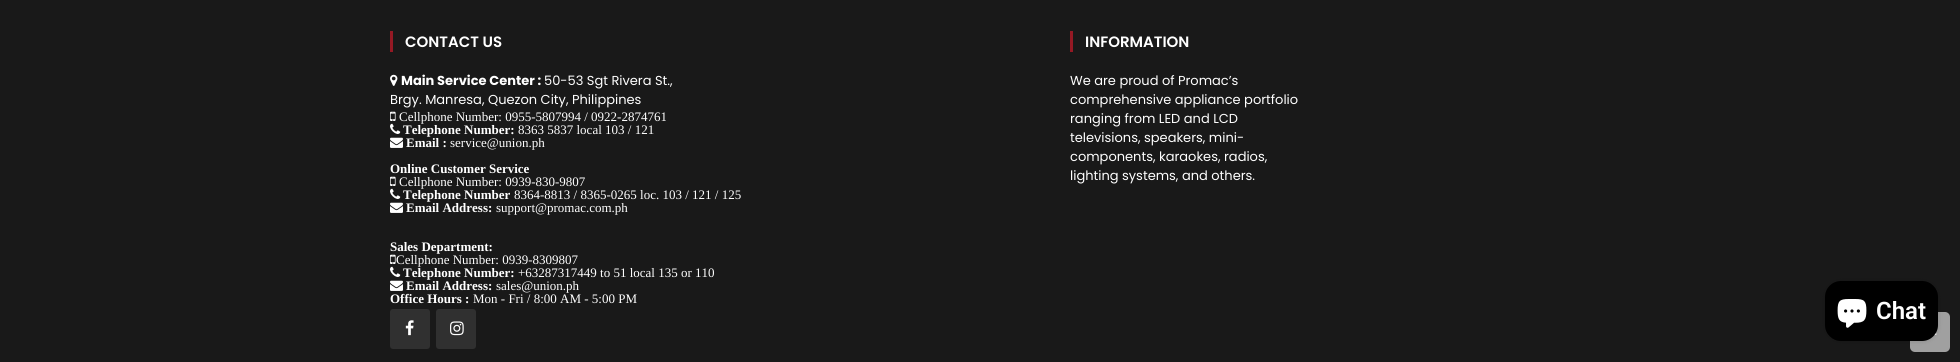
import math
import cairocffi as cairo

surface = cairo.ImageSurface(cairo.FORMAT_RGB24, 1960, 362)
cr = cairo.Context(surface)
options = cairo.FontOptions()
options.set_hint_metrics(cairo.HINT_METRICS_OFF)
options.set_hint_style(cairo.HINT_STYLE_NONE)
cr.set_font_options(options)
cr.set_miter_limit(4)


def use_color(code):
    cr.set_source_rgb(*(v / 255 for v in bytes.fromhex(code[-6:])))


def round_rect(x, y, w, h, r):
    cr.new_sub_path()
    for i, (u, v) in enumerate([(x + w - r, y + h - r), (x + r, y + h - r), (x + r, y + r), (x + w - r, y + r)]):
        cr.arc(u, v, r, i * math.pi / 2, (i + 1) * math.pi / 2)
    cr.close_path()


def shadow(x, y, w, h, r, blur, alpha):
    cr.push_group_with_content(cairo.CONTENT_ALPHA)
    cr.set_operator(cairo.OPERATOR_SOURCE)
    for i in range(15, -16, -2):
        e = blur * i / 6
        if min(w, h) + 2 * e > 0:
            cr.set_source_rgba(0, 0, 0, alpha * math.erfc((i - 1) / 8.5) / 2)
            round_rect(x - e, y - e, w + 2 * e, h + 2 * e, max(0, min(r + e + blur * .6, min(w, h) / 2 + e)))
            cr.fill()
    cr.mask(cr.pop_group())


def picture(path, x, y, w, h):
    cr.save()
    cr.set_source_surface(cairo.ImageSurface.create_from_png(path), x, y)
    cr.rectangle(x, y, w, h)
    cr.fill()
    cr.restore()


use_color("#191919")
cr.paint()
use_color("#951924")
cr.rectangle(390, 31, 3, 21)
cr.fill()
cr.select_font_face("Poppins SemiBold")
cr.set_font_size(15)
use_color("#ffffff")
cr.move_to(405, 47)
cr.show_text("CONTACT US")
picture("img1.png", 390, 74, 8, 12)
cr.select_font_face("Poppins", cairo.FONT_SLANT_NORMAL, cairo.FONT_WEIGHT_BOLD)
cr.set_font_size(13)
cr.move_to(401, 85)
cr.show_text("Main Service Center :")
cr.select_font_face("Poppins")
cr.move_to(544, 85)
cr.show_text("50-53 Sgt Rivera St.,")
cr.move_to(390, 104)
cr.show_text("Brgy. Manresa, Quezon City, Philippines")
picture("img2.png", 390, 111, 6, 10)
cr.select_font_face("Liberation Serif")
cr.move_to(399, 121)
cr.show_text("Cellphone Number: 0955-5807994 / 0922-2874761")
picture("img3.png", 390, 123, 11, 11)
cr.select_font_face("Liberation Serif", cairo.FONT_SLANT_NORMAL, cairo.FONT_WEIGHT_BOLD)
cr.move_to(403, 134)
cr.show_text("Telephone Number:")
cr.select_font_face("Liberation Serif")
cr.move_to(518, 134)
cr.show_text("8363 5837 local 103 / 121")
picture("img4.png", 390, 137, 13, 11)
cr.select_font_face("Liberation Serif", cairo.FONT_SLANT_NORMAL, cairo.FONT_WEIGHT_BOLD)
cr.move_to(406, 147)
cr.show_text("Email :")
cr.select_font_face("Liberation Serif")
cr.move_to(450, 147)
cr.show_text("service@union.ph")
cr.select_font_face("Liberation Serif", cairo.FONT_SLANT_NORMAL, cairo.FONT_WEIGHT_BOLD)
cr.move_to(390, 173)
cr.show_text("Online Customer Service")
picture("img2.png", 390, 176, 6, 10)
cr.select_font_face("Liberation Serif")
cr.move_to(399, 186)
cr.show_text("Cellphone Number: 0939-830-9807")
picture("img3.png", 390, 188, 11, 11)
cr.select_font_face("Liberation Serif", cairo.FONT_SLANT_NORMAL, cairo.FONT_WEIGHT_BOLD)
cr.move_to(403, 199)
cr.show_text("Telephone Number")
cr.select_font_face("Liberation Serif")
cr.move_to(514, 199)
cr.show_text("8364-8813 / 8365-0265 loc. 103 / 121 / 125")
picture("img4.png", 390, 202, 13, 11)
cr.select_font_face("Liberation Serif", cairo.FONT_SLANT_NORMAL, cairo.FONT_WEIGHT_BOLD)
cr.move_to(406, 212)
cr.show_text("Email Address:")
cr.select_font_face("Liberation Serif")
cr.move_to(496, 212)
cr.show_text("support@promac.com.ph")
cr.select_font_face("Liberation Serif", cairo.FONT_SLANT_NORMAL, cairo.FONT_WEIGHT_BOLD)
cr.move_to(390, 251)
cr.show_text("Sales Department:")
picture("img2.png", 390, 254, 6, 10)
cr.select_font_face("Liberation Serif")
cr.move_to(396, 264)
cr.show_text("Cellphone Number: 0939-8309807")
picture("img3.png", 390, 266, 11, 11)
cr.select_font_face("Liberation Serif", cairo.FONT_SLANT_NORMAL, cairo.FONT_WEIGHT_BOLD)
cr.move_to(403, 277)
cr.show_text("Telephone Number:")
cr.select_font_face("Liberation Serif")
cr.move_to(518, 277)
cr.show_text("+63287317449 to 51 local 135 or 110")
picture("img4.png", 390, 280, 13, 11)
cr.select_font_face("Liberation Serif", cairo.FONT_SLANT_NORMAL, cairo.FONT_WEIGHT_BOLD)
cr.move_to(406, 290)
cr.show_text("Email Address:")
cr.select_font_face("Liberation Serif")
cr.move_to(496, 290)
cr.show_text("sales@union.ph")
cr.select_font_face("Liberation Serif", cairo.FONT_SLANT_NORMAL, cairo.FONT_WEIGHT_BOLD)
cr.move_to(390, 303)
cr.show_text("Office Hours :")
cr.select_font_face("Liberation Serif")
cr.move_to(473, 303)
cr.show_text("Mon - Fri / 8:00 AM - 5:00 PM")
picture("img5.png", 405, 320, 9, 16)
cr.set_source_rgba(1, 1, 1, 0.1)
round_rect(390, 309, 40, 40, 3)
cr.fill()
picture("img6.png", 450, 321, 14, 15)
round_rect(436, 309, 40, 40, 3)
cr.fill()
use_color("#951924")
cr.rectangle(1070, 31, 3, 21)
cr.fill()
cr.select_font_face("Poppins SemiBold")
cr.set_font_size(15)
use_color("#ffffff")
cr.move_to(1085, 47)
cr.show_text("INFORMATION")
cr.select_font_face("Poppins")
cr.set_font_size(13)
cr.move_to(1070, 85)
cr.show_text("We are proud of Promac’s")
cr.move_to(1070, 104)
cr.show_text("comprehensive appliance portfolio")
cr.move_to(1070, 123)
cr.show_text("ranging from LED and LCD")
cr.move_to(1070, 142)
cr.show_text("televisions, speakers, mini-")
cr.move_to(1070, 161)
cr.show_text("components, karaokes, radios,")
cr.move_to(1070, 180)
cr.show_text("lighting systems, and others.")
use_color("#a0a0a0")
round_rect(1910, 312, 40, 40, 5)
cr.fill()
picture("img8.png", 1934, 332, 3, 3)
use_color("#000000")
shadow(1825, 281, 113, 60, 16, 2.5, 0.15)
use_color("#000000")
round_rect(1825, 281, 113, 60, 16)
cr.fill()
picture("img7.png", 1837, 299, 30, 29)
cr.select_font_face("Roboto SemiBold")
cr.set_font_size(24)
use_color("#ffffff")
cr.move_to(1876, 319)
cr.show_text("Chat")
surface.write_to_png("result.png")
